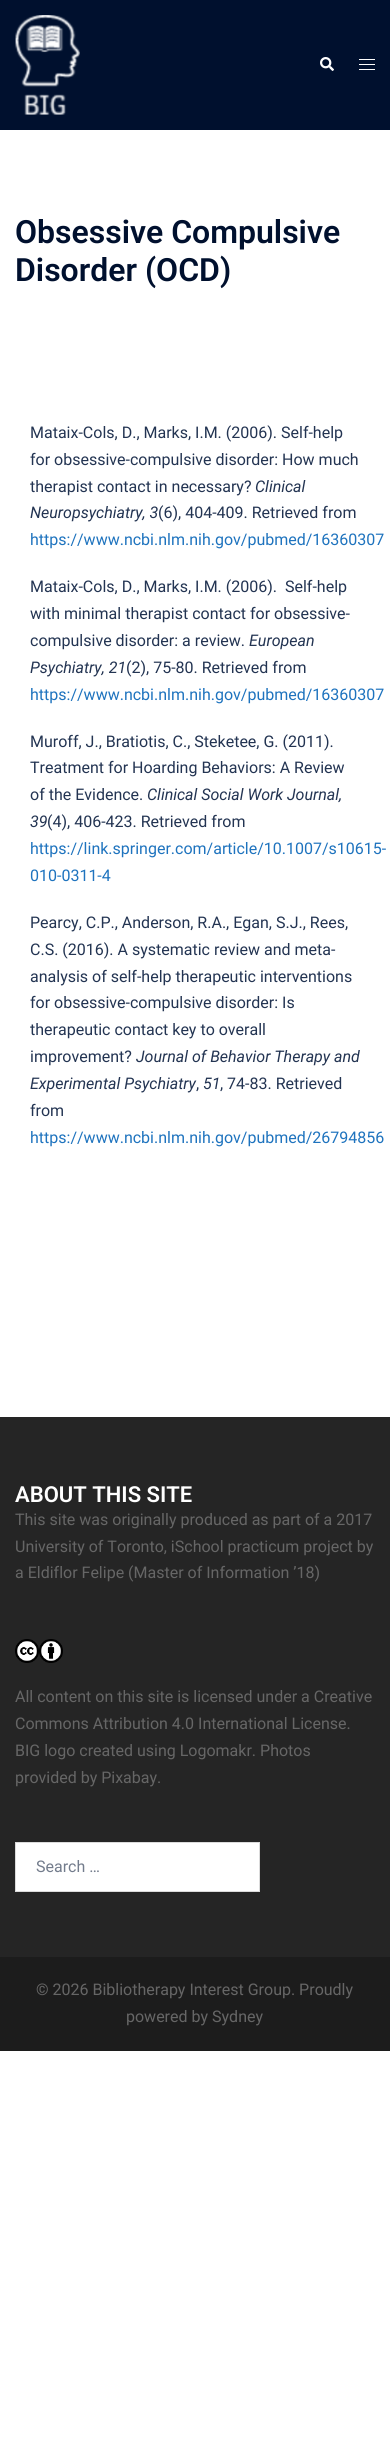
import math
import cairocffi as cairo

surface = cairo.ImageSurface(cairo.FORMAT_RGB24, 390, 2458)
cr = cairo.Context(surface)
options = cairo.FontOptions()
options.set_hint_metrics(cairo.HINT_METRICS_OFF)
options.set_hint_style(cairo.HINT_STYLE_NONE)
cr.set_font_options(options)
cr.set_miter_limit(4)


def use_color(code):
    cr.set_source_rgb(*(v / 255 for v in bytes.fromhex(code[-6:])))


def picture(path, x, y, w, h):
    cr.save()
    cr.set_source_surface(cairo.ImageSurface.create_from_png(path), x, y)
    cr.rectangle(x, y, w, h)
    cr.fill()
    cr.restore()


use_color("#ffffff")
cr.paint()
use_color("#00102e")
cr.rectangle(0, 0, 390, 130)
cr.fill()
picture("img1.png", 15, 15, 65, 100)
picture("img2.png", 320, 57, 14, 14)
use_color("#ffffff")
cr.rectangle(359, 59, 16, 1)
cr.fill()
cr.rectangle(359, 64, 16, 1)
cr.fill()
cr.rectangle(359, 69, 16, 1)
cr.fill()
cr.select_font_face("Roboto SemiBold")
cr.set_font_size(32)
use_color("#00102e")
cr.move_to(15, 243)
cr.show_text("Obsessive Compulsive")
cr.move_to(15, 281)
cr.show_text("Disorder (OCD)")
cr.select_font_face("Roboto")
cr.set_font_size(16)
use_color("#233452")
cr.move_to(30, 438)
cr.show_text("Mataix-Cols, D., Marks, I.M. (2006). Self-help")
cr.move_to(30, 465)
cr.show_text("for obsessive-compulsive disorder: How much")
cr.move_to(30, 492)
cr.show_text("therapist contact in necessary?")
cr.select_font_face("Roboto", cairo.FONT_SLANT_ITALIC)
cr.move_to(255, 492)
cr.show_text("Clinical")
cr.move_to(30, 518)
cr.show_text("Neuropsychiatry, 3")
cr.select_font_face("Roboto")
cr.move_to(158, 518)
cr.show_text("(6), 404-409. Retrieved from")
use_color("#1e73be")
cr.move_to(30, 545)
cr.show_text("https://www.ncbi.nlm.nih.gov/pubmed/16360307")
use_color("#233452")
cr.move_to(30, 592)
cr.show_text("Mataix-Cols, D., Marks, I.M. (2006).  Self-help")
cr.move_to(30, 619)
cr.show_text("with minimal therapist contact for obsessive-")
cr.move_to(30, 646)
cr.show_text("compulsive disorder: a review.")
cr.select_font_face("Roboto", cairo.FONT_SLANT_ITALIC)
cr.move_to(249, 646)
cr.show_text("European")
cr.move_to(30, 673)
cr.show_text("Psychiatry, 21")
cr.select_font_face("Roboto")
cr.move_to(126, 673)
cr.show_text("(2), 75-80. Retrieved from")
use_color("#1e73be")
cr.move_to(30, 700)
cr.show_text("https://www.ncbi.nlm.nih.gov/pubmed/16360307")
use_color("#233452")
cr.move_to(30, 747)
cr.show_text("Muroff, J., Bratiotis, C., Steketee, G. (2011).")
cr.move_to(30, 773)
cr.show_text("Treatment for Hoarding Behaviors: A Review")
cr.move_to(30, 800)
cr.show_text("of the Evidence.")
cr.select_font_face("Roboto", cairo.FONT_SLANT_ITALIC)
cr.move_to(147, 800)
cr.show_text("Clinical Social Work Journal,")
cr.move_to(30, 827)
cr.show_text("39")
cr.select_font_face("Roboto")
cr.move_to(47, 827)
cr.show_text("(4), 406-423. Retrieved from")
use_color("#1e73be")
cr.move_to(30, 854)
cr.show_text("https://link.springer.com/article/10.1007/s10615-")
cr.move_to(30, 881)
cr.show_text("010-0311-4")
use_color("#233452")
cr.move_to(30, 928)
cr.show_text("Pearcy, C.P., Anderson, R.A., Egan, S.J., Rees,")
cr.move_to(30, 955)
cr.show_text("C.S. (2016). A systematic review and meta-")
cr.move_to(30, 982)
cr.show_text("analysis of self-help therapeutic interventions")
cr.move_to(30, 1008)
cr.show_text("for obsessive-compulsive disorder: Is")
cr.move_to(30, 1035)
cr.show_text("therapeutic contact key to overall")
cr.move_to(30, 1062)
cr.show_text("improvement?")
cr.select_font_face("Roboto", cairo.FONT_SLANT_ITALIC)
cr.move_to(136, 1062)
cr.show_text("Journal of Behavior Therapy and")
cr.move_to(30, 1089)
cr.show_text("Experimental Psychiatry")
cr.select_font_face("Roboto")
cr.move_to(196, 1089)
cr.show_text(",")
cr.select_font_face("Roboto", cairo.FONT_SLANT_ITALIC)
cr.move_to(203, 1089)
cr.show_text("51")
cr.select_font_face("Roboto")
cr.move_to(220, 1089)
cr.show_text(", 74-83. Retrieved")
cr.move_to(30, 1116)
cr.show_text("from")
use_color("#1e73be")
cr.move_to(30, 1143)
cr.show_text("https://www.ncbi.nlm.nih.gov/pubmed/26794856")
use_color("#252525")
cr.rectangle(0, 1417, 390, 540)
cr.fill()
cr.select_font_face("Roboto SemiBold")
cr.set_font_size(22)
use_color("#ffffff")
cr.move_to(15, 1502)
cr.show_text("ABOUT THIS SITE")
cr.select_font_face("Roboto")
cr.set_font_size(16)
use_color("#666666")
cr.move_to(15, 1525)
cr.show_text("This site was originally produced as part of a 2017")
cr.move_to(15, 1552)
cr.show_text("University of Toronto, iSchool practicum project by")
cr.move_to(15, 1578)
cr.show_text("a Eldiflor Felipe (Master of Information ’18)")
picture("img3.png", 15, 1639, 24, 24)
picture("img4.png", 39, 1639, 24, 24)
cr.move_to(15, 1702)
cr.show_text("All content on this site is licensed under a Creative")
cr.move_to(15, 1729)
cr.show_text("Commons Attribution 4.0 International License.")
cr.move_to(15, 1756)
cr.show_text("BIG logo created using Logomakr. Photos")
cr.move_to(15, 1783)
cr.show_text("provided by Pixabay.")
use_color("#ffffff")
cr.rectangle(15.5, 1842.5, 244, 49)
cr.fill_preserve()
use_color("#dbdbdb")
cr.set_line_width(1)
cr.stroke()
use_color("#737c8c")
cr.move_to(36, 1872)
cr.show_text("Search …")
use_color("#1c1c1c")
cr.rectangle(0, 1957, 390, 94)
cr.fill()
use_color("#666666")
cr.move_to(36, 1995)
cr.show_text("© 2026 Bibliotherapy Interest Group. Proudly")
cr.move_to(126, 2022)
cr.show_text("powered by Sydney")
surface.write_to_png("result.png")
